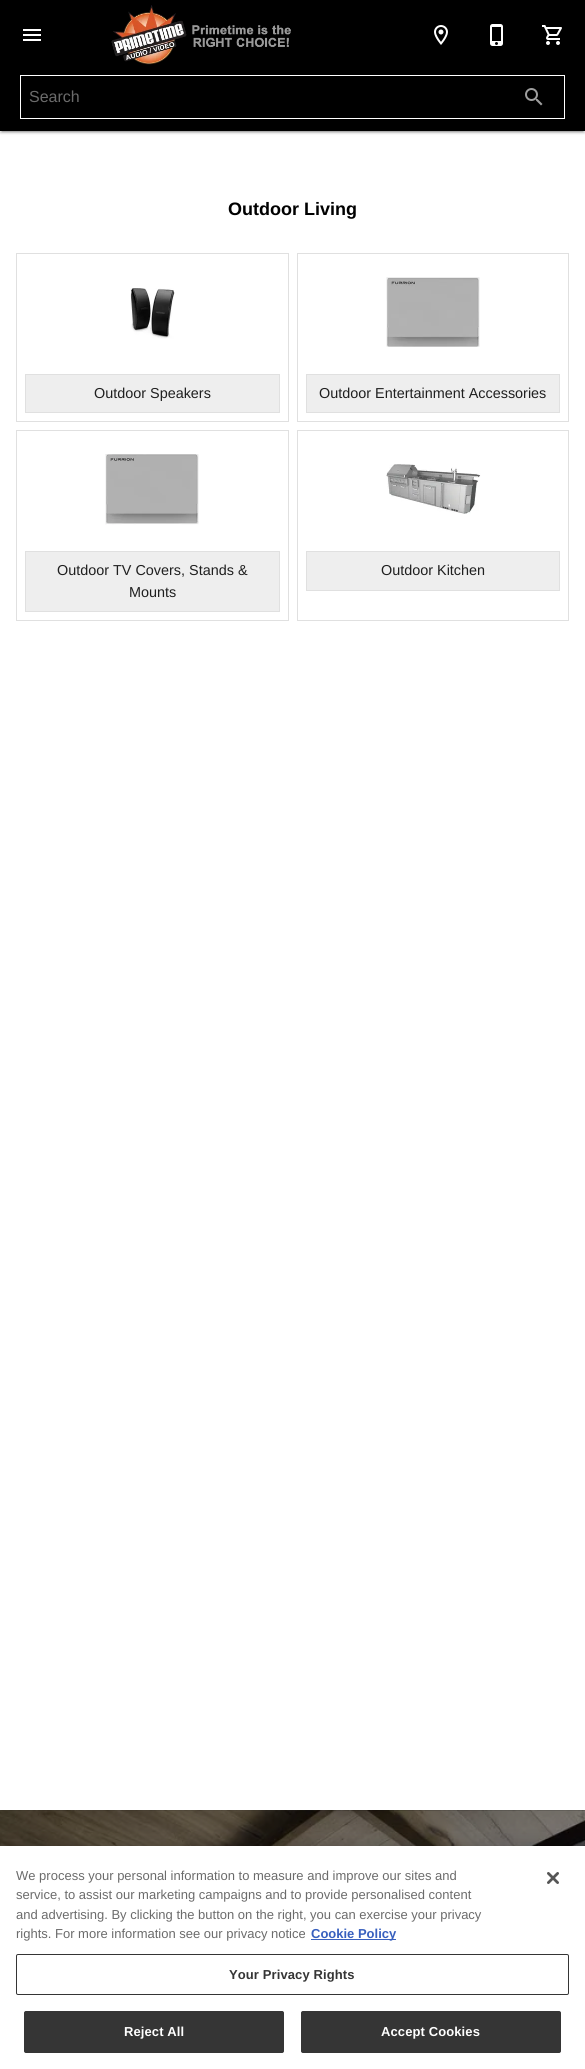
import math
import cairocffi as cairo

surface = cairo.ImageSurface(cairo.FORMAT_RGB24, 585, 2069)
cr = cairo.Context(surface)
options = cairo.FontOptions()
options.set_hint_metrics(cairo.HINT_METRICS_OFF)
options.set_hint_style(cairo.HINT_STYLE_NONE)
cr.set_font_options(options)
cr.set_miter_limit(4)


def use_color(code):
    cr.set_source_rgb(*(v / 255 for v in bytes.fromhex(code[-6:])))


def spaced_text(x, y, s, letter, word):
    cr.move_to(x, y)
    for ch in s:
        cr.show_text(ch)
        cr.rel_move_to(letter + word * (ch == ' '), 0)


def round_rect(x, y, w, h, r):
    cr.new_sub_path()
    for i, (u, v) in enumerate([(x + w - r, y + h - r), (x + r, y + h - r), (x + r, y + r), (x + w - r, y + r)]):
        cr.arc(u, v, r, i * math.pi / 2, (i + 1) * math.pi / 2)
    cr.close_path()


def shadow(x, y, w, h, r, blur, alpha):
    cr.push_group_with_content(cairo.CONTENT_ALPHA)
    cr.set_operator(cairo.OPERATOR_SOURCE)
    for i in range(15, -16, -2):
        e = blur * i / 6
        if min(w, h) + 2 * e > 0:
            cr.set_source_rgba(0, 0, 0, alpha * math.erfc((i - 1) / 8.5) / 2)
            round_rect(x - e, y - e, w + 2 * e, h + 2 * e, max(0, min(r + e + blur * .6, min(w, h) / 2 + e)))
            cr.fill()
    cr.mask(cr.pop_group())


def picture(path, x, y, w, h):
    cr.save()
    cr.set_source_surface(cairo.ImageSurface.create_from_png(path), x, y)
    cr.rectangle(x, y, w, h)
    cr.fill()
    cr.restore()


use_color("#ffffff")
cr.paint()
use_color("#000000")
shadow(0, 0, 585, 132, 0, 2.5, 0.12)
shadow(0, 1, 585, 132, 0, 1, 0.14)
shadow(2, 4, 581, 128, 0, 0.5, 0.2)
use_color("#000000")
cr.rectangle(0, 0, 585, 131)
cr.fill()
picture("img1.png", 23, 29, 18, 12)
picture("img2.png", 111, 5, 180, 60)
picture("img3.png", 434, 25, 14, 20)
picture("img4.png", 490, 24, 13, 22)
picture("img5.png", 542, 25, 20, 20)
cr.rectangle(20.5, 75.5, 544, 43)
use_color("#ffffff")
cr.set_line_width(1)
cr.stroke()
cr.select_font_face("Liberation Sans")
cr.set_font_size(16)
use_color("#6b6b6b")
cr.move_to(29, 102)
cr.show_text("Search")
picture("img6.png", 525, 88, 18, 18)
cr.select_font_face("Liberation Sans", cairo.FONT_SLANT_NORMAL, cairo.FONT_WEIGHT_BOLD)
cr.set_font_size(18)
use_color("#000000")
cr.move_to(228, 215)
cr.show_text("Outdoor Living")
cr.rectangle(16.5, 253.5, 272, 168)
use_color("#e0e0e0")
cr.stroke()
picture("img7.png", 130, 288, 45, 51)
use_color("#eeeeee")
cr.rectangle(25.5, 374.5, 254, 38)
cr.fill_preserve()
use_color("#e0e0e0")
cr.stroke()
cr.select_font_face("Liberation Sans")
cr.set_font_size(14.4)
use_color("#1f1f1f")
cr.move_to(94, 398)
cr.show_text("Outdoor Speakers")
cr.rectangle(297.5, 253.5, 271, 168)
use_color("#e0e0e0")
cr.stroke()
picture("img8.png", 386, 277, 94, 70)
use_color("#eeeeee")
cr.rectangle(306.5, 374.5, 253, 38)
cr.fill_preserve()
use_color("#e0e0e0")
cr.stroke()
use_color("#1f1f1f")
cr.move_to(319, 398)
cr.show_text("Outdoor Entertainment Accessories")
cr.rectangle(16.5, 430.5, 272, 190)
use_color("#e0e0e0")
cr.stroke()
picture("img9.png", 105, 454, 94, 71)
use_color("#eeeeee")
cr.rectangle(25.5, 551.5, 254, 60)
cr.fill_preserve()
use_color("#e0e0e0")
cr.stroke()
use_color("#1f1f1f")
cr.move_to(57, 575)
cr.show_text("Outdoor TV Covers, Stands &")
cr.move_to(129, 597)
cr.show_text("Mounts")
cr.rectangle(297.5, 430.5, 271, 190)
use_color("#e0e0e0")
cr.stroke()
picture("img10.png", 386, 464, 95, 50)
use_color("#eeeeee")
cr.rectangle(306.5, 551.5, 253, 39)
cr.fill_preserve()
use_color("#e0e0e0")
cr.stroke()
use_color("#1f1f1f")
cr.move_to(381, 575)
cr.show_text("Outdoor Kitchen")
picture("img11.png", 0, 1810, 585, 36)
use_color("#000000")
shadow(0, 1846, 585, 223, 0, 9, 0.2)
use_color("#ffffff")
cr.rectangle(0, 1846, 585, 223)
cr.fill()
cr.set_font_size(13)
use_color("#6b6b6b")
cr.move_to(16, 1880)
cr.show_text("We process your personal information to measure and improve our sites and")
cr.move_to(16, 1899)
cr.show_text("service, to assist our marketing campaigns and to provide personalised content")
cr.move_to(16, 1919)
cr.show_text("and advertising. By clicking the button on the right, you can exercise your privacy")
cr.move_to(16, 1938)
cr.show_text("rights. For more information see our privacy notice")
use_color("#3860be")
cr.rectangle(311, 1939, 85, 1)
cr.fill()
cr.select_font_face("Liberation Sans", cairo.FONT_SLANT_NORMAL, cairo.FONT_WEIGHT_BOLD)
cr.move_to(311, 1938)
cr.show_text("Cookie Policy")
round_rect(16.5, 1954.5, 552, 40, 1.5)
use_color("#353535")
cr.stroke()
spaced_text(229, 1979, "Your Privacy Rights", 0.1, 0)
round_rect(24.5, 2011.5, 259, 41, 1.5)
cr.fill_preserve()
cr.stroke()
use_color("#ffffff")
spaced_text(124, 2036, "Reject All", 0.1, 0)
use_color("#353535")
round_rect(301.5, 2011.5, 259, 41, 1.5)
cr.fill_preserve()
cr.stroke()
use_color("#ffffff")
spaced_text(381, 2036, "Accept Cookies", 0.1, 0)
picture("img12.png", 547, 1872, 12, 12)
surface.write_to_png("result.png")
